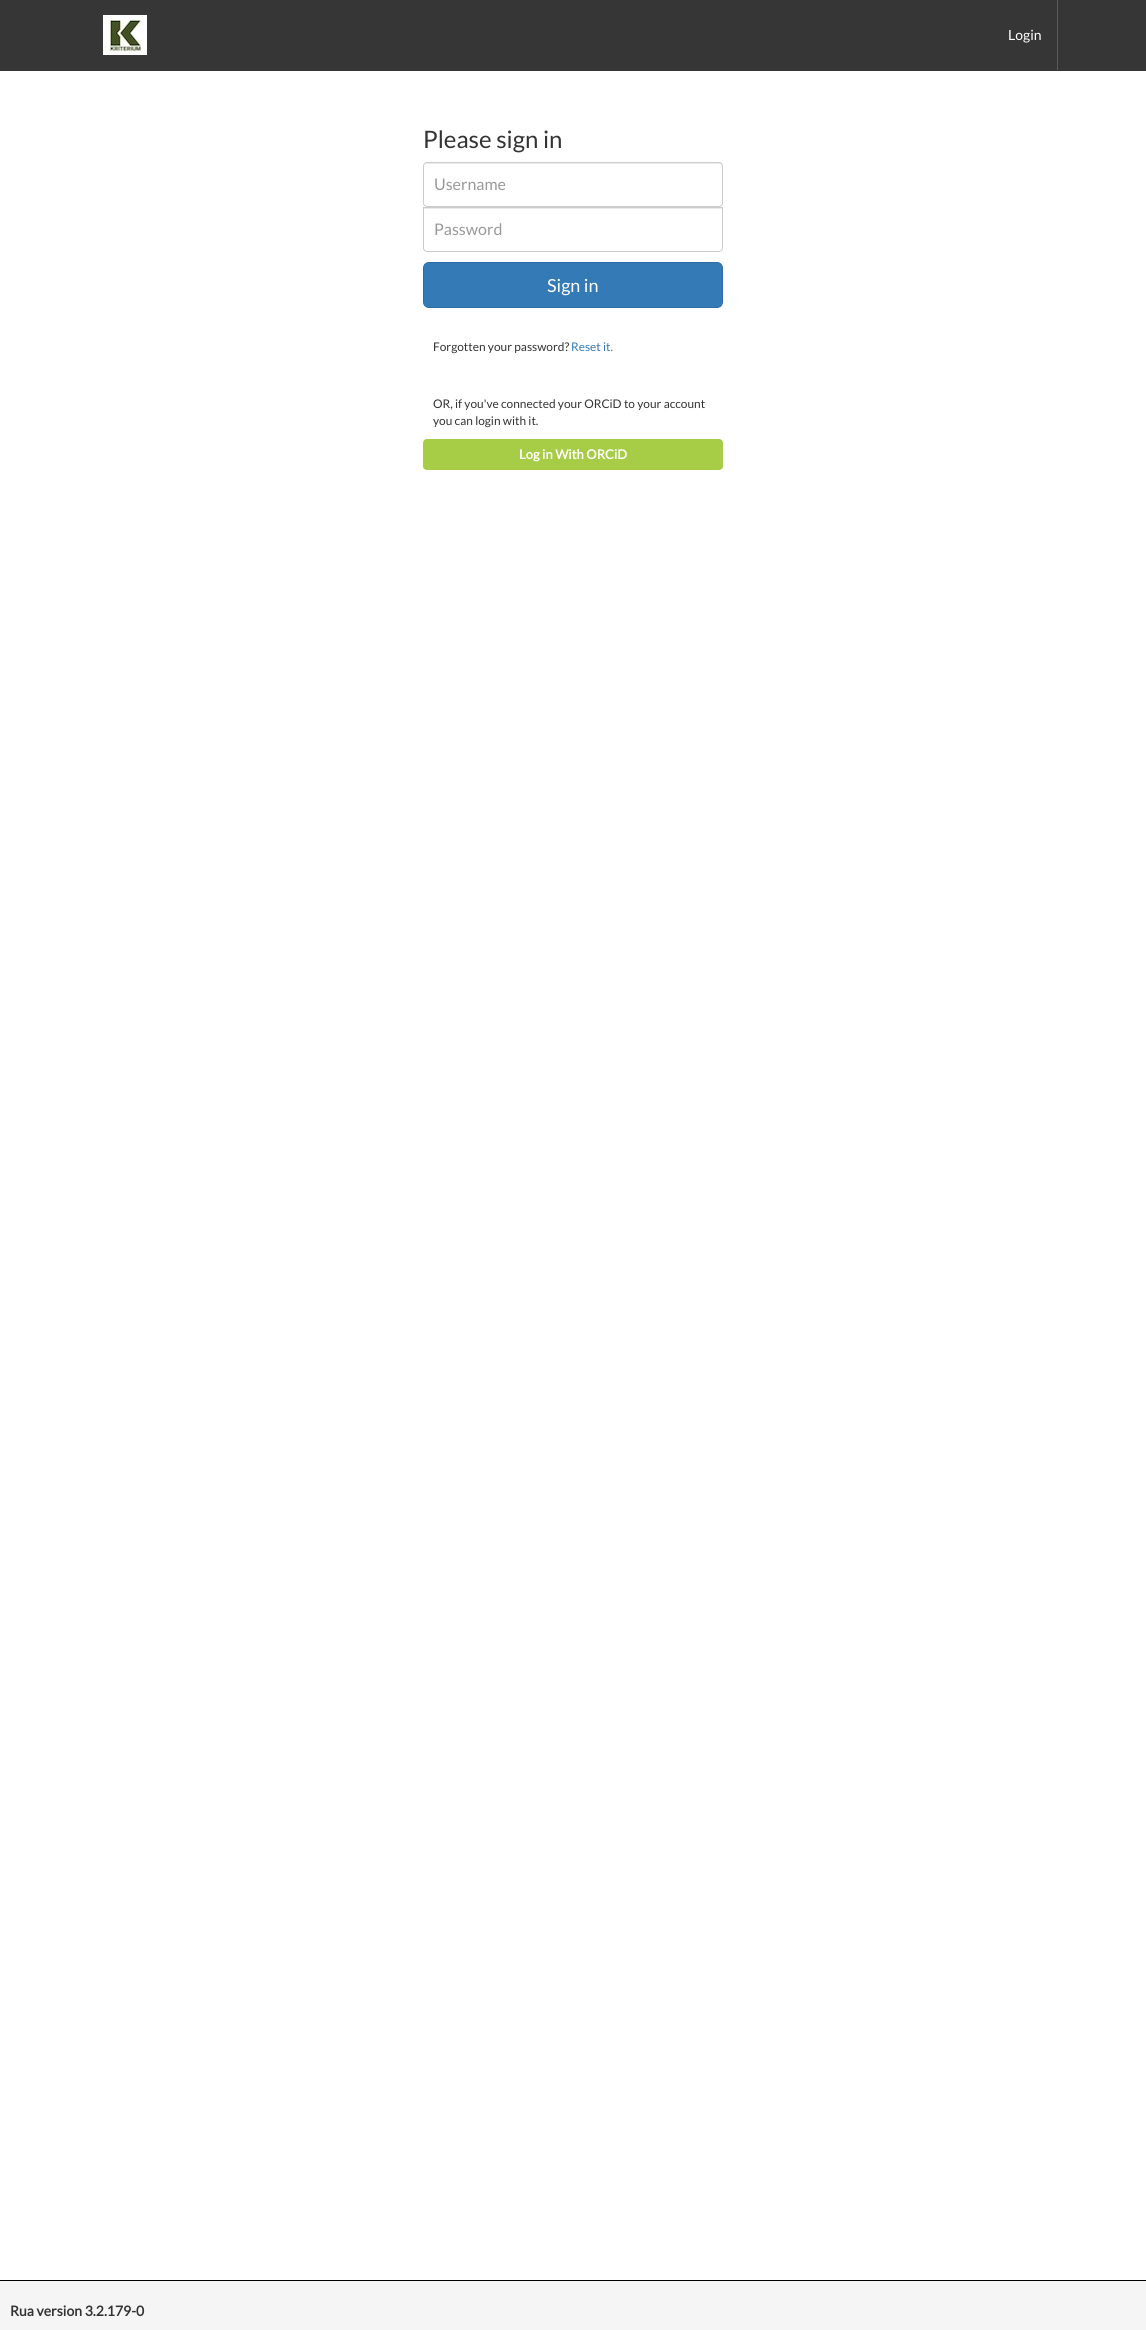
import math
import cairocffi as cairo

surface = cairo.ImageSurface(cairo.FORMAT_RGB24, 1146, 2330)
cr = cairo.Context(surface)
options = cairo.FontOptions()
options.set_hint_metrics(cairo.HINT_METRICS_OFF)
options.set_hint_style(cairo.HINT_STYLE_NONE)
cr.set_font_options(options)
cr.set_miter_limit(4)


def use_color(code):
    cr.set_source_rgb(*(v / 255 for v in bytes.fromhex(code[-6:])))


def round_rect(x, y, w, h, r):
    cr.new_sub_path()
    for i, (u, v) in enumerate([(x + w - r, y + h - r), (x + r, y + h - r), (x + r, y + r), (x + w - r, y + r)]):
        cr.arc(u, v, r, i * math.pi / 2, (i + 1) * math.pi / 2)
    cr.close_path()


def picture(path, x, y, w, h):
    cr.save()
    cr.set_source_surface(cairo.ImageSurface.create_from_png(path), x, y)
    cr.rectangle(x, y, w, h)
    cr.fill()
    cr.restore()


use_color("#ffffff")
cr.paint()
use_color("#363636")
cr.rectangle(0, 0, 1146, 71)
cr.fill()
picture("img1.png", 103, 15, 44, 40)
use_color("#5b5b5b")
cr.rectangle(1057, 0, 1, 70)
cr.fill()
cr.select_font_face("Lato")
cr.set_font_size(14)
use_color("#ffffff")
cr.move_to(1008, 40)
cr.show_text("Login")
cr.set_font_size(24)
use_color("#333333")
cr.move_to(423, 148)
cr.show_text("Please sign in")
use_color("#ececec")
cr.new_path()
cr.move_to(427, 164)
cr.line_to(719, 164)
cr.curve_to(721, 164, 722, 165, 722, 167)
cr.line_to(721, 164)
cr.line_to(720, 163)
cr.line_to(427, 163)
cr.curve_to(425, 163, 424, 165, 424, 167)
cr.curve_to(424, 165, 425, 164, 427, 164)
cr.close_path()
cr.fill()
round_rect(423.5, 162.5, 299, 44, 3.5)
use_color("#cccccc")
cr.set_line_width(1)
cr.stroke()
cr.set_font_size(16)
use_color("#999999")
cr.move_to(434, 190)
cr.show_text("Username")
use_color("#ececec")
cr.rectangle(424, 208, 298, 1)
cr.fill()
cr.new_path()
cr.move_to(423.5, 207.5)
cr.line_to(722.5, 207.5)
cr.line_to(722.5, 248)
cr.curve_to(722.5, 250, 721, 251.5, 719, 251.5)
cr.line_to(427, 251.5)
cr.curve_to(425, 251.5, 423.5, 250, 423.5, 248)
cr.close_path()
use_color("#cccccc")
cr.stroke()
use_color("#999999")
cr.move_to(434, 235)
cr.show_text("Password")
use_color("#337ab7")
round_rect(423.5, 262.5, 299, 45, 5.5)
cr.fill_preserve()
use_color("#2e6da4")
cr.stroke()
cr.set_font_size(18)
use_color("#ffffff")
cr.move_to(547, 292)
cr.show_text("Sign in")
cr.set_font_size(11.9)
use_color("#333333")
cr.move_to(433, 351)
cr.show_text("Forgotten your password?")
use_color("#337ab7")
cr.move_to(571, 351)
cr.show_text("Reset it.")
use_color("#333333")
cr.move_to(433, 408)
cr.show_text("OR, if you've connected your ORCiD to your account")
cr.move_to(433, 425)
cr.show_text("you can login with it.")
use_color("#a7cc46")
round_rect(423, 439, 300, 31, 4)
cr.fill()
cr.select_font_face("Lato", cairo.FONT_SLANT_NORMAL, cairo.FONT_WEIGHT_BOLD)
cr.set_font_size(13)
use_color("#ffffff")
cr.move_to(519, 459)
cr.show_text("Log in With ORCiD")
use_color("#f5f5f5")
cr.rectangle(0, 2281, 1146, 49)
cr.fill()
use_color("#000000")
cr.rectangle(0, 2280, 1146, 1)
cr.fill()
cr.set_font_size(14)
use_color("#333333")
cr.move_to(10, 2316)
cr.show_text("Rua version 3.2.179-0")
surface.write_to_png("result.png")
